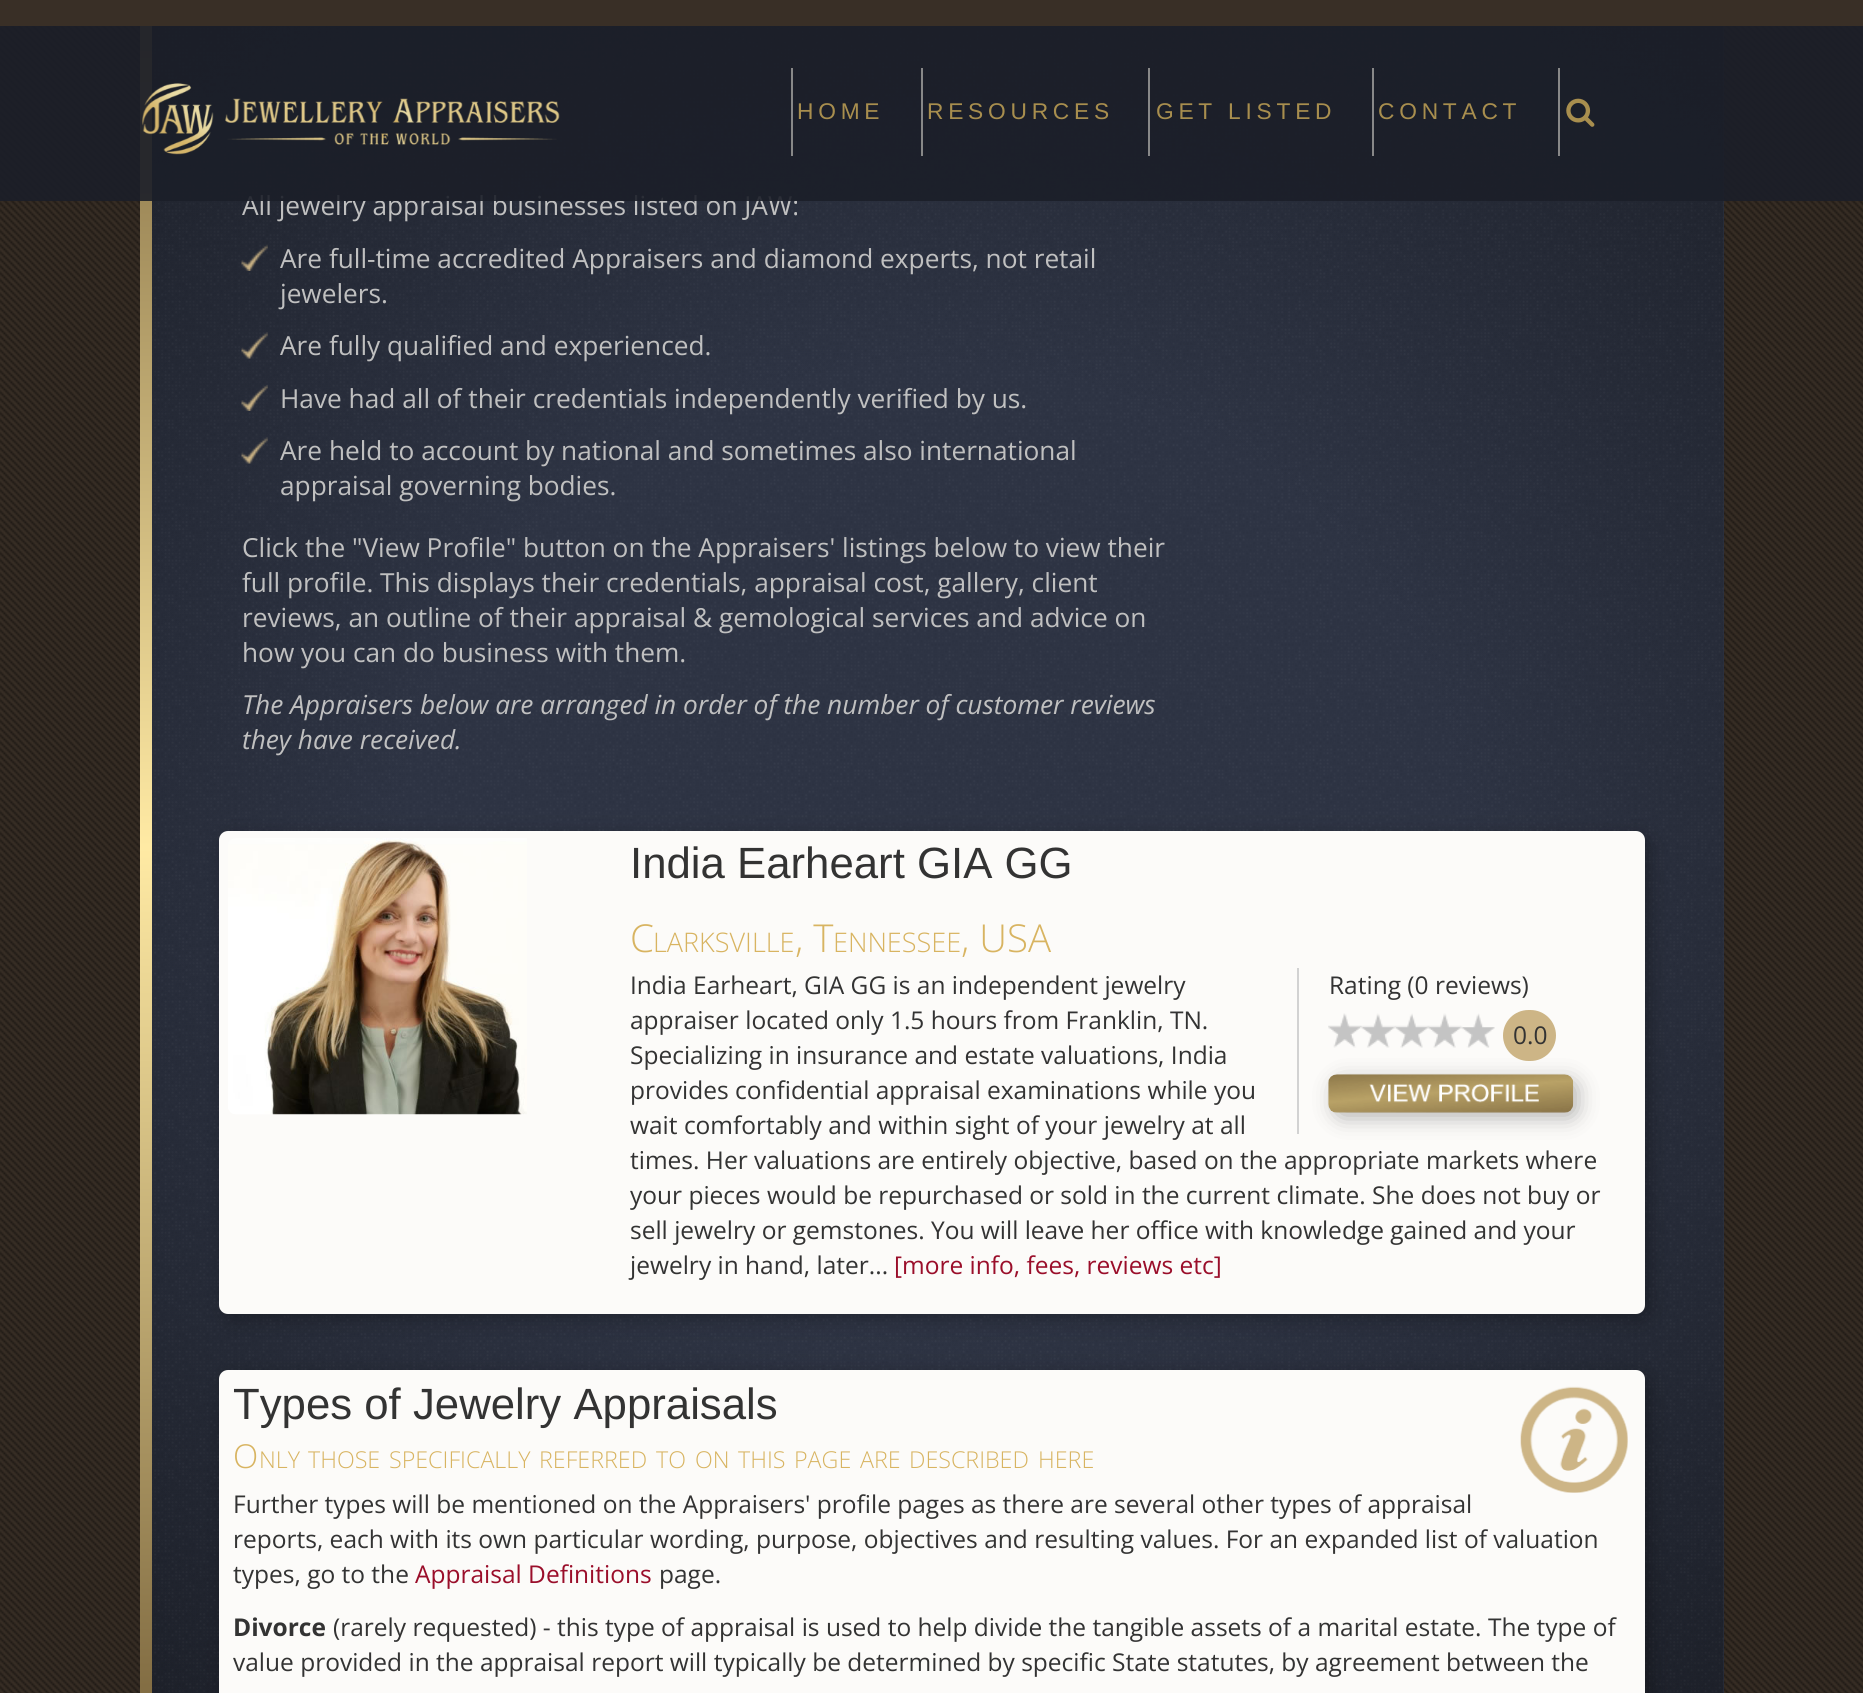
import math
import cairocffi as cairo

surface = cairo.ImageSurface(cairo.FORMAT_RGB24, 1863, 1693)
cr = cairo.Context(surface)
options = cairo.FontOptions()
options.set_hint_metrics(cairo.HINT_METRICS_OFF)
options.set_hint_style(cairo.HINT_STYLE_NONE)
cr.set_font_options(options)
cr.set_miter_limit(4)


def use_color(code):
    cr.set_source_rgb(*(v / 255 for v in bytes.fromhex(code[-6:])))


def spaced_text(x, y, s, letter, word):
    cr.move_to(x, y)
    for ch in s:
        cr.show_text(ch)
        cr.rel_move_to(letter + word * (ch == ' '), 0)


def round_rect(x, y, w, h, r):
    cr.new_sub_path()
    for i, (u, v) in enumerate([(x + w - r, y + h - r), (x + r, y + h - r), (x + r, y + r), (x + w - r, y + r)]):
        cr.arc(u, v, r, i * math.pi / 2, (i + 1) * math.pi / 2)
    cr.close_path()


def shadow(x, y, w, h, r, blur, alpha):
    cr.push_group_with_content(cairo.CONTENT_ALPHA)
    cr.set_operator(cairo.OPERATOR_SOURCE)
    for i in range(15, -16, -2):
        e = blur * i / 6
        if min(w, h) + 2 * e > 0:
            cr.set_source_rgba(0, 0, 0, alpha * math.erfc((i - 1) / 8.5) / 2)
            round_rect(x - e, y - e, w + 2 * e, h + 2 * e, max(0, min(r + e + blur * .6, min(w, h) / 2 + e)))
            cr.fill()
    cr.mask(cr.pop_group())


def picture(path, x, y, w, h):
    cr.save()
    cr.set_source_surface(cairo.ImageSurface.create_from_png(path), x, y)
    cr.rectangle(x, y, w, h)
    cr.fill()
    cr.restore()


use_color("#392f26")
cr.paint()
picture("img1.png", 0, 26, 1863, 1667)
use_color("#2e3444")
cr.rectangle(1723, 26, 1, 1667)
cr.fill()
picture("img4.png", 152, 26, 1572, 1667)
gradient = cairo.LinearGradient(932, 0, 932, 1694)
gradient.add_color_stop_rgba(0, 0.51, 0.427, 0.263, 1)
gradient.add_color_stop_rgba(0.5, 1, 0.918, 0.643, 1)
gradient.add_color_stop_rgba(1, 0.51, 0.427, 0.263, 1)
cr.set_source(gradient)
cr.rectangle(140, 26, 12, 1667)
cr.fill()
cr.select_font_face("Open Sans")
cr.set_font_size(26.25)
use_color("#c0c0c0")
cr.move_to(242, 215)
cr.show_text("All jewelry appraisal businesses listed on JAW:")
cr.set_source_rgba(0.106, 0.118, 0.157, 0.9)
cr.rectangle(0, 26, 1863, 175)
cr.fill()
picture("img2.png", 142, 83, 418, 72)
use_color("#888888")
cr.rectangle(791, 68, 2, 88)
cr.fill()
cr.select_font_face("Liberation Sans")
cr.set_font_size(22.75)
use_color("#a88e4e")
spaced_text(797, 119, "HOME", 4.75, 0)
use_color("#888888")
cr.rectangle(921, 68, 2, 88)
cr.fill()
use_color("#a88e4e")
spaced_text(927, 119, "RESOURCES", 4.75, 0)
use_color("#888888")
cr.rectangle(1148, 68, 2, 88)
cr.fill()
use_color("#a88e4e")
spaced_text(1156, 119, "GET LISTED", 4.75, 0)
use_color("#888888")
cr.rectangle(1372, 68, 2, 88)
cr.fill()
use_color("#a88e4e")
spaced_text(1378, 119, "CONTACT", 4.75, 0)
use_color("#888888")
cr.rectangle(1558, 68, 2, 88)
cr.fill()
picture("img3.png", 1566, 98, 29, 29)
picture("img5.png", 241, 244, 27, 27)
cr.select_font_face("Open Sans")
cr.set_font_size(26.25)
use_color("#c0c0c0")
cr.move_to(280, 268)
cr.show_text("Are full-time accredited Appraisers and diamond experts, not retail")
cr.move_to(280, 303)
cr.show_text("jewelers.")
picture("img6.png", 241, 332, 27, 27)
cr.move_to(280, 355)
cr.show_text("Are fully qualified and experienced.")
picture("img7.png", 241, 385, 27, 26)
cr.move_to(280, 408)
cr.show_text("Have had all of their credentials independently verified by us.")
picture("img8.png", 241, 437, 27, 27)
cr.move_to(280, 460)
cr.show_text("Are held to account by national and sometimes also international")
cr.move_to(280, 495)
cr.show_text("appraisal governing bodies.")
cr.move_to(242, 557)
cr.show_text("Click the \"View Profile\" button on the Appraisers' listings below to view their")
cr.move_to(242, 592)
cr.show_text("full profile. This displays their credentials, appraisal cost, gallery, client")
cr.move_to(242, 627)
cr.show_text("reviews, an outline of their appraisal & gemological services and advice on")
cr.move_to(242, 662)
cr.show_text("how you can do business with them.")
cr.select_font_face("Open Sans", cairo.FONT_SLANT_ITALIC)
cr.move_to(242, 714)
cr.show_text("The Appraisers below are arranged in order of the number of customer reviews")
cr.move_to(242, 749)
cr.show_text("they have received.")
use_color("#000000")
shadow(228, 840, 1419, 476, 5, 11.5, 0.35)
use_color("#fcfbf9")
round_rect(219, 831, 1426, 483, 9)
cr.fill()
picture("img9.png", 228, 838, 299, 277)
cr.select_font_face("Liberation Sans")
cr.set_font_size(43.75)
use_color("#333333")
cr.move_to(630, 878)
cr.show_text("India Earheart GIA GG")
cr.select_font_face("Open Sans Light")
cr.set_font_size(38.5)
use_color("#d8b461")
cr.move_to(630, 952)
cr.show_text("C")
cr.set_font_size(27)
cr.move_to(653, 952)
cr.show_text("LARKSVILLE")
cr.set_font_size(38.5)
cr.move_to(795, 952)
cr.show_text(", T")
cr.set_font_size(27)
cr.move_to(833, 952)
cr.show_text("ENNESSEE")
cr.set_font_size(38.5)
cr.move_to(961, 952)
cr.show_text(", USA")
cr.select_font_face("Open Sans")
cr.set_font_size(24.5)
use_color("#333333")
cr.move_to(630, 994)
cr.show_text("India Earheart, GIA GG is an independent jewelry")
cr.move_to(630, 1029)
cr.show_text("appraiser located only 1.5 hours from Franklin, TN.")
cr.move_to(630, 1064)
cr.show_text("Specializing in insurance and estate valuations, India")
cr.move_to(630, 1099)
cr.show_text("provides confidential appraisal examinations while you")
cr.move_to(630, 1134)
cr.show_text("wait comfortably and within sight of your jewelry at all")
use_color("#000000")
shadow(1337, 1083, 238, 32, 5, 11.5, 0.35)
use_color("#333333")
cr.move_to(630, 1169)
cr.show_text("times. Her valuations are entirely objective, based on the appropriate markets where")
cr.move_to(630, 1204)
cr.show_text("your pieces would be repurchased or sold in the current climate. She does not buy or")
cr.move_to(630, 1239)
cr.show_text("sell jewelry or gemstones. You will leave her office with knowledge gained and your")
cr.move_to(630, 1274)
cr.show_text("jewelry in hand, later...")
use_color("#9a0e2a")
cr.move_to(894, 1274)
cr.show_text("[more info, fees, reviews etc]")
use_color("#d2d2d2")
cr.rectangle(1297, 968, 2, 166)
cr.fill()
use_color("#333333")
cr.move_to(1329, 994)
cr.show_text("Rating (0 reviews)")
picture("img10.png", 1328, 1013, 167, 35)
use_color("#cdb586")
round_rect(1503, 1010, 53, 51, 25.5)
cr.fill()
use_color("#333333")
cr.move_to(1513, 1044)
cr.show_text("0.0")
picture("img11.png", 1328, 1074, 246, 39)
use_color("#000000")
shadow(228, 1379, 1419, 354, 5, 11.5, 0.35)
use_color("#fcfbf9")
round_rect(219, 1370, 1426, 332, 9)
cr.fill()
cr.select_font_face("Liberation Sans")
cr.set_font_size(43.75)
use_color("#333333")
cr.move_to(233, 1419)
cr.show_text("Types of Jewelry Appraisals")
picture("img12.png", 1520, 1386, 108, 107)
cr.select_font_face("Open Sans Light")
cr.set_font_size(33)
use_color("#d8b461")
cr.move_to(233, 1468)
cr.show_text("O")
cr.set_font_size(23.25)
cr.move_to(259, 1468)
cr.show_text("NLY")
cr.move_to(308, 1468)
cr.show_text("THOSE")
cr.move_to(389, 1468)
cr.show_text("SPECIFICALLY")
cr.move_to(539, 1468)
cr.show_text("REFERRED")
cr.move_to(656, 1468)
cr.show_text("TO")
cr.move_to(695, 1468)
cr.show_text("ON")
cr.move_to(738, 1468)
cr.show_text("THIS")
cr.move_to(794, 1468)
cr.show_text("PAGE")
cr.move_to(860, 1468)
cr.show_text("ARE")
cr.move_to(909, 1468)
cr.show_text("DESCRIBED")
cr.move_to(1038, 1468)
cr.show_text("HERE")
cr.select_font_face("Open Sans")
cr.set_font_size(24.5)
use_color("#333333")
cr.move_to(233, 1513)
cr.show_text("Further types will be mentioned on the Appraisers' profile pages as there are several other types of appraisal")
cr.move_to(233, 1548)
cr.show_text("reports, each with its own particular wording, purpose, objectives and resulting values. For an expanded list of valuation")
cr.move_to(233, 1583)
cr.show_text("types, go to the")
use_color("#9a0e2a")
cr.move_to(415, 1583)
cr.show_text("Appraisal Definitions")
use_color("#333333")
cr.move_to(659, 1583)
cr.show_text("page.")
cr.select_font_face("Open Sans", cairo.FONT_SLANT_NORMAL, cairo.FONT_WEIGHT_BOLD)
cr.move_to(233, 1636)
cr.show_text("Divorce")
cr.select_font_face("Open Sans")
cr.move_to(333, 1636)
cr.show_text("(rarely requested) - this type of appraisal is used to help divide the tangible assets of a marital estate. The type of")
cr.move_to(233, 1671)
cr.show_text("value provided in the appraisal report will typically be determined by specific State statutes, by agreement between the")
surface.write_to_png("result.png")
